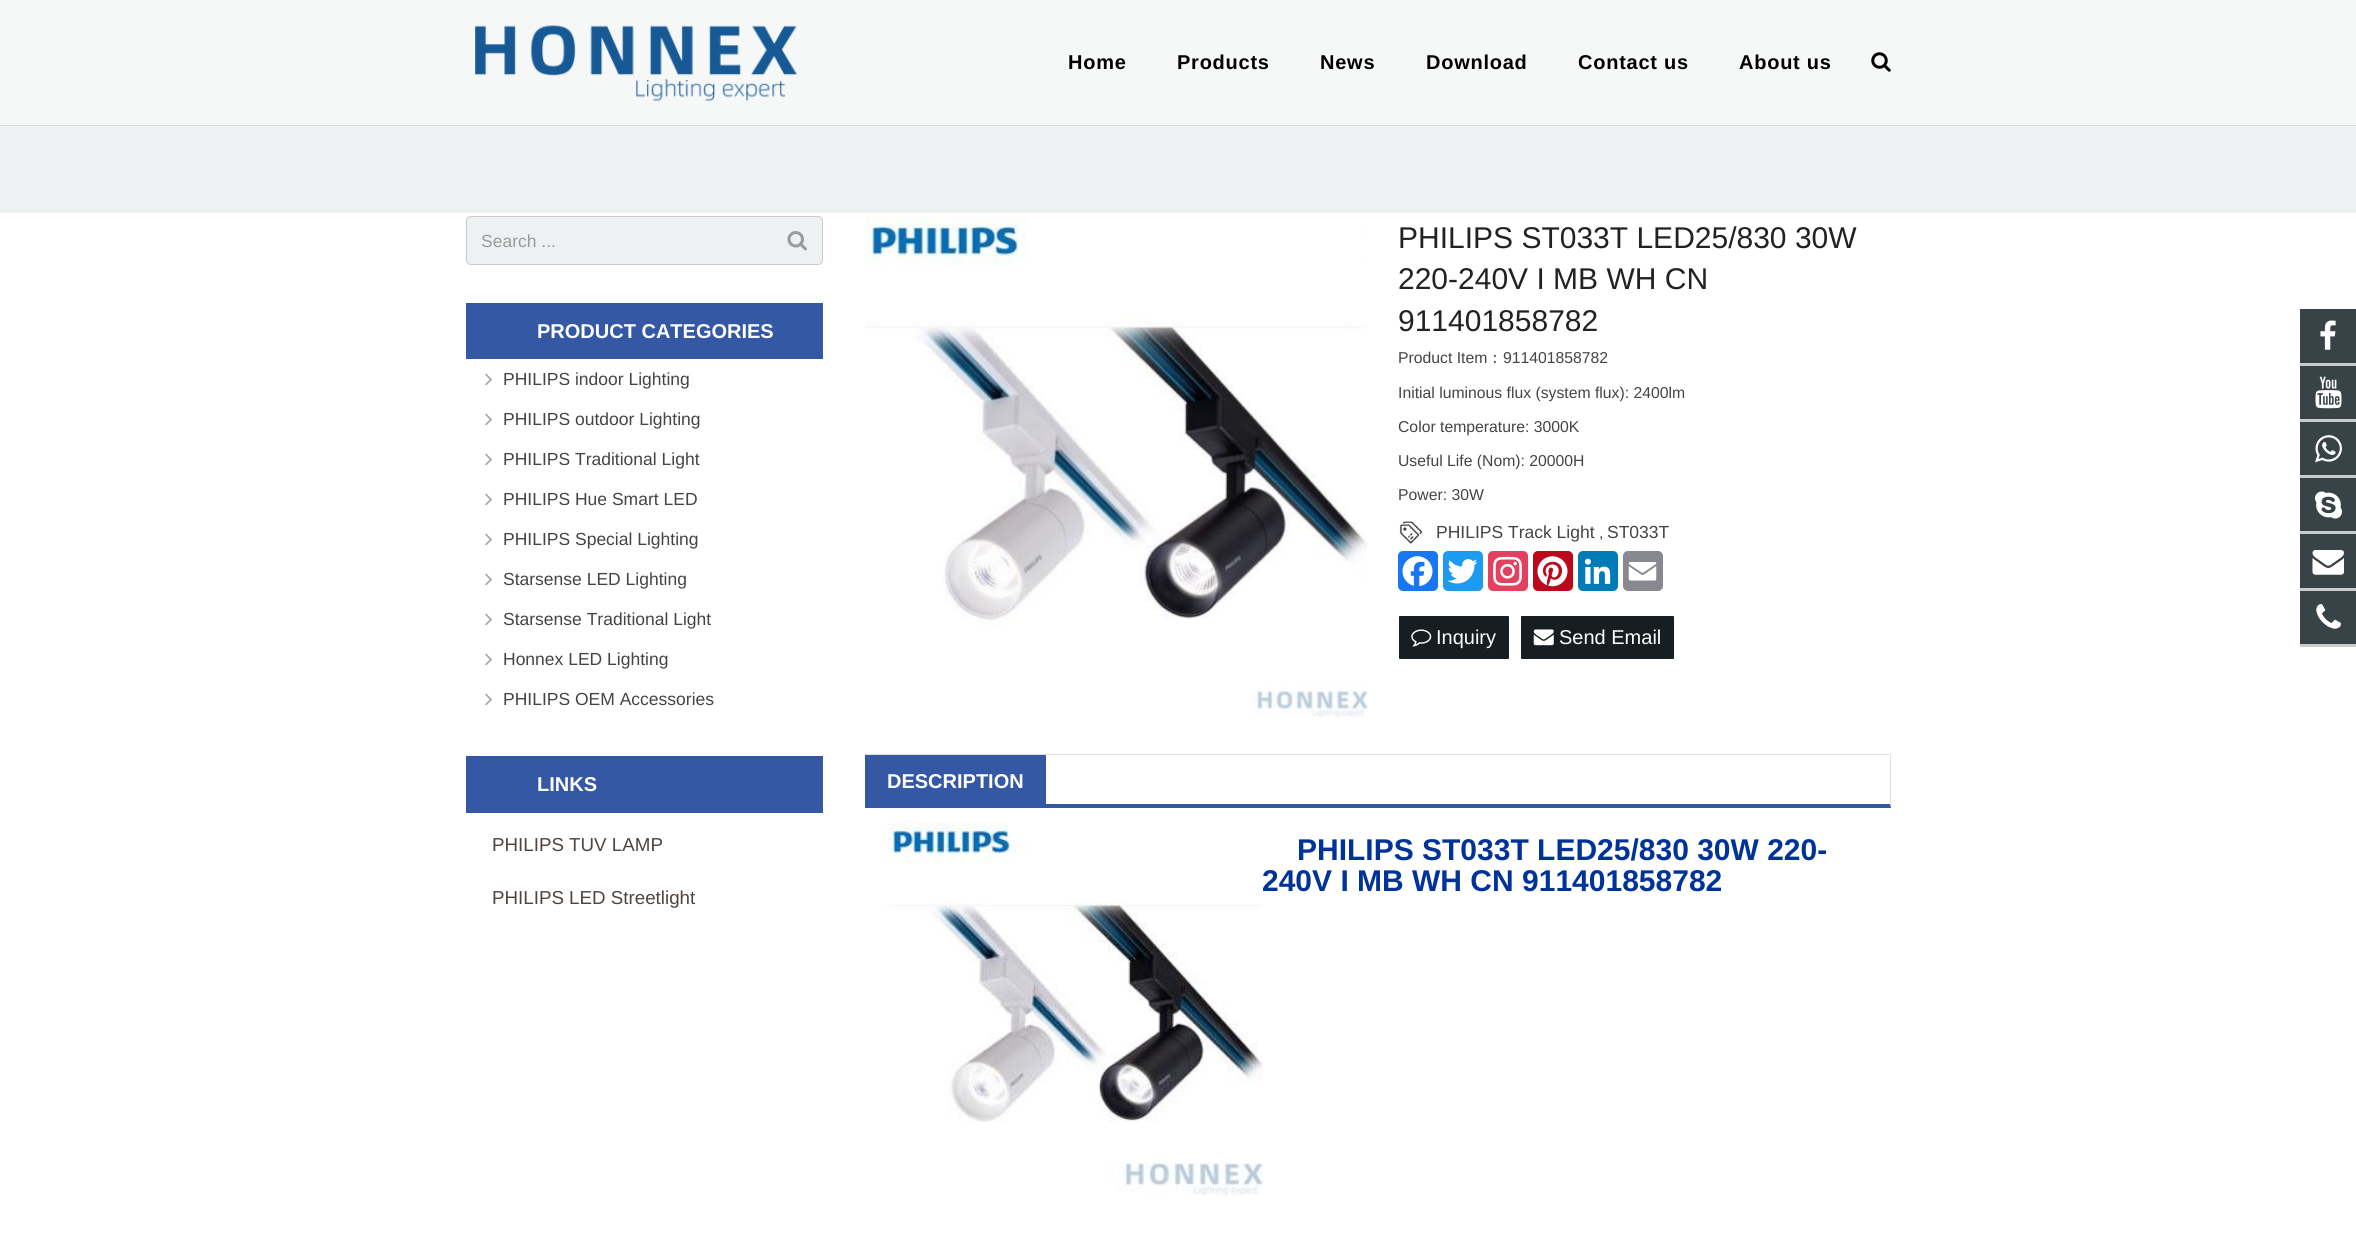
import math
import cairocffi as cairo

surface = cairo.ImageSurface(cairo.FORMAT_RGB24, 2356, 1236)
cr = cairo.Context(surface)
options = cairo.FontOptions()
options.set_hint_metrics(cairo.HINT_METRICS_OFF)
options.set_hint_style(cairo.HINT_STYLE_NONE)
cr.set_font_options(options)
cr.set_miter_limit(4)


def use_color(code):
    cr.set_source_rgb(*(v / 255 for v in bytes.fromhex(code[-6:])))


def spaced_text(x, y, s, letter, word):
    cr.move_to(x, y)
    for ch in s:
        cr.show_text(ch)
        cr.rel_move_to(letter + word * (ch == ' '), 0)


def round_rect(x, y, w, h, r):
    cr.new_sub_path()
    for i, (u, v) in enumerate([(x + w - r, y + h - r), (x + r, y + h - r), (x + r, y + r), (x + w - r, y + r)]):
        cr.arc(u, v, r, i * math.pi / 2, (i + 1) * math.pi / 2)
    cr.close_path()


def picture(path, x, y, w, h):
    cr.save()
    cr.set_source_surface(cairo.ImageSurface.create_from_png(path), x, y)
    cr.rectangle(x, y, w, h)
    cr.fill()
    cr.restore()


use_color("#ffffff")
cr.paint()
use_color("#dadedf")
cr.rectangle(0, 125, 2356, 1)
cr.fill()
use_color("#f6f8f8")
cr.rectangle(0, 0, 2356, 125)
cr.fill()
picture("img1.png", 475, 25, 322, 77)
cr.select_font_face("Liberation Sans", cairo.FONT_SLANT_NORMAL, cairo.FONT_WEIGHT_BOLD)
cr.set_font_size(20)
use_color("#000000")
spaced_text(1068, 69, "Home", 0.75, 0)
spaced_text(1177, 69, "Products", 0.75, 0)
spaced_text(1320, 69, "News", 0.75, 0)
spaced_text(1426, 69, "Download", 0.75, 0)
spaced_text(1578, 69, "Contact us", 0.75, 0)
spaced_text(1739, 69, "About us", 0.75, 0)
picture("img2.png", 1871, 52, 20, 20)
use_color("#edf1f2")
cr.rectangle(0, 126, 2356, 87)
cr.fill()
round_rect(466.5, 216.5, 356, 48, 4.5)
cr.fill_preserve()
use_color("#cccccc")
cr.set_line_width(1)
cr.stroke()
cr.select_font_face("Liberation Sans")
cr.set_font_size(17.5)
use_color("#999b9b")
cr.move_to(481, 247)
cr.show_text("Search ...")
picture("img3.png", 787, 231, 20, 20)
use_color("#3458a4")
cr.rectangle(466, 303, 357, 56)
cr.fill()
cr.select_font_face("Liberation Sans", cairo.FONT_SLANT_NORMAL, cairo.FONT_WEIGHT_BOLD)
cr.set_font_size(20)
use_color("#ffffff")
cr.move_to(537, 338)
cr.show_text("PRODUCT CATEGORIES")
picture("img4.png", 485, 373, 7, 13)
cr.select_font_face("Liberation Sans")
cr.set_font_size(17.5)
use_color("#444444")
cr.move_to(503, 385)
cr.show_text("PHILIPS indoor Lighting")
picture("img4.png", 485, 413, 7, 13)
cr.move_to(503, 425)
cr.show_text("PHILIPS outdoor Lighting")
picture("img4.png", 485, 453, 7, 13)
cr.move_to(503, 465)
cr.show_text("PHILIPS Traditional Light")
picture("img4.png", 485, 493, 7, 13)
cr.move_to(503, 505)
cr.show_text("PHILIPS Hue Smart LED")
picture("img4.png", 485, 533, 7, 13)
cr.move_to(503, 545)
cr.show_text("PHILIPS Special Lighting")
picture("img4.png", 485, 573, 7, 13)
cr.move_to(503, 585)
cr.show_text("Starsense LED Lighting")
picture("img4.png", 485, 613, 7, 13)
cr.move_to(503, 625)
cr.show_text("Starsense Traditional Light")
picture("img4.png", 485, 653, 7, 13)
cr.move_to(503, 665)
cr.show_text("Honnex LED Lighting")
picture("img4.png", 485, 693, 7, 13)
cr.move_to(503, 705)
cr.show_text("PHILIPS OEM Accessories")
use_color("#3458a4")
cr.rectangle(466, 756, 357, 57)
cr.fill()
cr.select_font_face("Liberation Sans", cairo.FONT_SLANT_NORMAL, cairo.FONT_WEIGHT_BOLD)
cr.set_font_size(20)
use_color("#ffffff")
cr.move_to(537, 791)
cr.show_text("LINKS")
cr.select_font_face("Liberation Sans")
cr.set_font_size(18.75)
use_color("#4e4540")
cr.move_to(492, 851)
cr.show_text("PHILIPS TUV LAMP")
cr.move_to(492, 904)
cr.show_text("PHILIPS LED Streetlight")
picture("img5.png", 865, 216, 503, 502)
picture("img6.png", 1367, 221, 1, 488)
cr.set_font_size(30)
use_color("#222222")
cr.move_to(1398, 248)
cr.show_text("PHILIPS ST033T LED25/830 30W")
cr.move_to(1398, 289)
cr.show_text("220-240V I MB WH CN")
cr.move_to(1398, 331)
cr.show_text("911401858782")
cr.set_font_size(15.75)
use_color("#444444")
cr.move_to(1398, 363)
cr.show_text("Product Item")
cr.select_font_face("WenQuanYi Zen Hei Medium")
cr.move_to(1487, 363)
cr.show_text("：")
cr.select_font_face("Liberation Sans")
cr.move_to(1503, 363)
cr.show_text("911401858782")
cr.move_to(1398, 398)
cr.show_text("Initial luminous flux (system flux): 2400lm")
cr.move_to(1398, 432)
cr.show_text("Color temperature: 3000K")
cr.move_to(1398, 466)
cr.show_text("Useful Life (Nom): 20000H")
cr.move_to(1398, 500)
cr.show_text("Power: 30W")
picture("img7.png", 1399, 521, 24, 23)
cr.set_font_size(17.5)
cr.move_to(1436, 538)
cr.show_text("PHILIPS Track Light")
cr.set_font_size(15.75)
cr.move_to(1599, 538)
cr.show_text(",")
cr.set_font_size(17.5)
cr.move_to(1607, 538)
cr.show_text("ST033T")
use_color("#1877f2")
round_rect(1398, 551, 40, 40, 5)
cr.fill()
picture("img8.png", 1402, 556, 31, 31)
use_color("#1d9bf0")
round_rect(1443, 551, 40, 40, 5)
cr.fill()
picture("img9.png", 1447, 559, 31, 25)
use_color("#e4405f")
round_rect(1488, 551, 40, 40, 5)
cr.fill()
picture("img10.png", 1493, 556, 29, 30)
use_color("#bd081c")
round_rect(1533, 551, 40, 40, 5)
cr.fill()
picture("img11.png", 1537, 556, 31, 31)
use_color("#007bb5")
round_rect(1578, 551, 40, 40, 5)
cr.fill()
picture("img12.png", 1584, 558, 27, 26)
use_color("#888990")
round_rect(1623, 551, 40, 40, 5)
cr.fill()
picture("img13.png", 1628, 562, 29, 19)
use_color("#161e21")
round_rect(1399, 616, 110, 43, 1)
cr.fill()
picture("img14.png", 1411, 629, 21, 18)
cr.set_font_size(20)
use_color("#ffffff")
cr.move_to(1436, 644)
cr.show_text("Inquiry")
use_color("#161e21")
round_rect(1521, 616, 153, 43, 1)
cr.fill()
picture("img15.png", 1533, 629, 21, 17)
use_color("#ffffff")
cr.move_to(1559, 644)
cr.show_text("Send Email")
use_color("#e0e0e0")
cr.new_path()
cr.move_to(865, 754)
cr.line_to(1891, 754)
cr.line_to(1890, 755)
cr.line_to(865, 755)
cr.close_path()
cr.fill()
cr.set_source_rgba(0.4, 0.4, 0.4, 0.2)
cr.new_path()
cr.move_to(1891, 754)
cr.line_to(1891, 808)
cr.line_to(1890, 804)
cr.line_to(1890, 755)
cr.close_path()
cr.fill()
use_color("#3458a4")
cr.new_path()
cr.move_to(1891, 808)
cr.line_to(865, 808)
cr.line_to(865, 804)
cr.line_to(1890, 804)
cr.close_path()
cr.fill()
cr.rectangle(865, 755, 181, 49)
cr.fill()
cr.select_font_face("Liberation Sans", cairo.FONT_SLANT_NORMAL, cairo.FONT_WEIGHT_BOLD)
use_color("#ffffff")
cr.move_to(887, 788)
cr.show_text("DESCRIPTION")
picture("img16.png", 887, 822, 376, 374)
cr.set_font_size(30)
use_color("#003399")
cr.move_to(1297, 860)
cr.show_text("PHILIPS ST033T LED25/830 30W 220-")
cr.move_to(1262, 891)
cr.show_text("240V I MB WH CN 911401858782")
use_color("#384347")
cr.rectangle(2300, 309, 56, 335)
cr.fill()
use_color("#cccccc")
cr.rectangle(2300, 363, 56, 3)
cr.fill()
picture("img17.png", 2320, 320, 16, 30)
cr.rectangle(2300, 419, 56, 3)
cr.fill()
picture("img18.png", 2315, 376, 27, 33)
cr.rectangle(2300, 475, 56, 3)
cr.fill()
picture("img19.png", 2315, 435, 27, 28)
cr.rectangle(2300, 531, 56, 3)
cr.fill()
picture("img20.png", 2315, 491, 27, 28)
cr.rectangle(2300, 588, 56, 3)
cr.fill()
picture("img21.png", 2312, 550, 32, 25)
cr.rectangle(2300, 644, 56, 3)
cr.fill()
picture("img22.png", 2316, 604, 25, 25)
surface.write_to_png("result.png")
